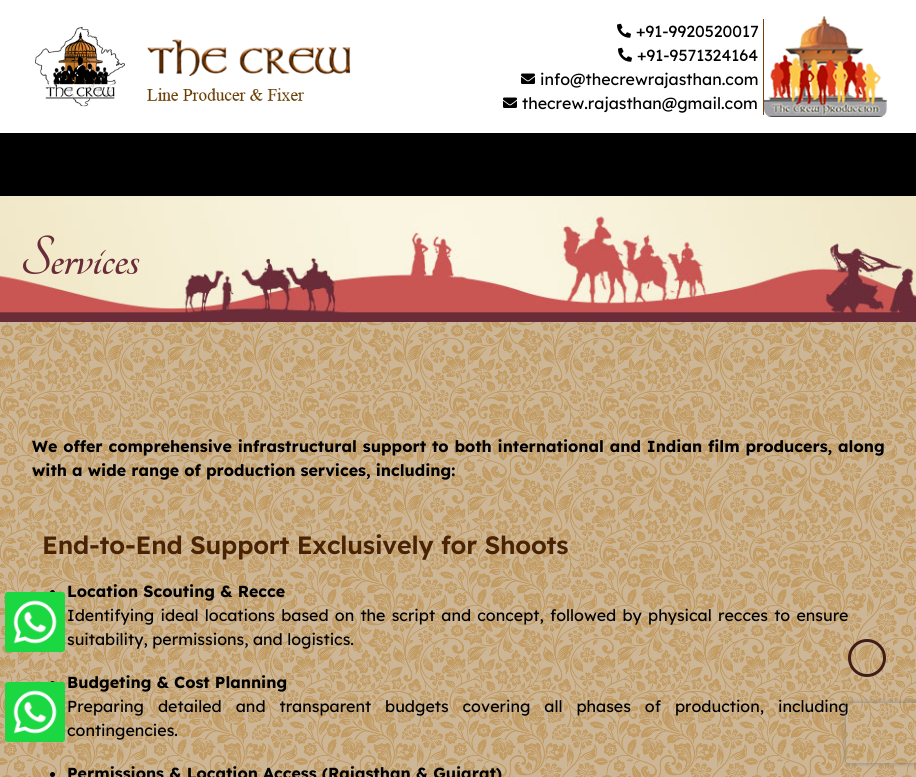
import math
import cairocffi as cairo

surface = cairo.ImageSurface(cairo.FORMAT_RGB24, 916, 777)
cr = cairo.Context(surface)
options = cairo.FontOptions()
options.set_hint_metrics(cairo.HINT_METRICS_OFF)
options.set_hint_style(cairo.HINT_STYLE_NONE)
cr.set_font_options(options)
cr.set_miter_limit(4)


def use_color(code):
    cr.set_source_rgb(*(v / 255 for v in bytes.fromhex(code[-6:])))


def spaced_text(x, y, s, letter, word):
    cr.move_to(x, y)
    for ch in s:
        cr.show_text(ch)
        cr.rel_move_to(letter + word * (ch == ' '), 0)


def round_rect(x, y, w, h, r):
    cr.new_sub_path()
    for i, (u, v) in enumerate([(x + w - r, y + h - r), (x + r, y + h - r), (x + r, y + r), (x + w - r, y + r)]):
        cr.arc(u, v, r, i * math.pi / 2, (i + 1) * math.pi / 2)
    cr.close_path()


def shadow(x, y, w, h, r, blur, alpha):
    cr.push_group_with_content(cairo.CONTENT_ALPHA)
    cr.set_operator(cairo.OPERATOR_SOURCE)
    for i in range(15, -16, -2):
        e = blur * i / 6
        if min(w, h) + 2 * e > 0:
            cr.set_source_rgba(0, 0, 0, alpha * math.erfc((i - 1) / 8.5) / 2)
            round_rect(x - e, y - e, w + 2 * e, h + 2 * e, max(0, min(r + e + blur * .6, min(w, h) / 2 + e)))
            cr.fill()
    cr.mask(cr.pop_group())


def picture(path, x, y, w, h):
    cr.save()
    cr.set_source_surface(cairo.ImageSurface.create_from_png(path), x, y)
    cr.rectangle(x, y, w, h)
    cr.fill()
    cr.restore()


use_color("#ffffff")
cr.paint()
picture("img1.png", 35, 26, 316, 81)
use_color("#793e0a")
cr.rectangle(763, 19, 1, 96)
cr.fill()
picture("img2.png", 617, 23, 14, 15)
cr.select_font_face("Lexend")
cr.set_font_size(16)
use_color("#000000")
cr.move_to(636, 37)
cr.show_text("+91-9920520017")
picture("img2.png", 618, 47, 14, 15)
cr.move_to(637, 61)
cr.show_text("+91-9571324164")
picture("img3.png", 521, 73, 14, 11)
cr.move_to(540, 85)
cr.show_text("info@thecrewrajasthan.com")
picture("img3.png", 503, 97, 14, 11)
cr.move_to(522, 109)
cr.show_text("thecrew.rajasthan@gmail.com")
picture("img4.png", 764, 16, 123, 101)
cr.rectangle(0, 133, 916, 63)
cr.fill()
picture("img5.png", 0, 196, 916, 126)
cr.select_font_face("Tangerine", cairo.FONT_SLANT_NORMAL, cairo.FONT_WEIGHT_BOLD)
cr.set_font_size(60)
use_color("#6a2c39")
spaced_text(20, 274, "Services", -1, 0)
use_color("#cdb696")
cr.rectangle(0, 322, 916, 455)
cr.fill()
picture("img6.png", 0, 322, 916, 455)
cr.select_font_face("Lexend", cairo.FONT_SLANT_NORMAL, cairo.FONT_WEIGHT_BOLD)
cr.set_font_size(16)
use_color("#000000")
spaced_text(32, 452, "We offer comprehensive infrastructural support to both international and Indian film producers, along", 0, 0.75)
cr.move_to(32, 476)
cr.show_text("with a wide range of production services, including:")
cr.select_font_face("Lexend SemiBold")
cr.set_font_size(25)
use_color("#492303")
spaced_text(42, 554, "End-to-End Support Exclusively for Shoots", -0.2, 0)
use_color("#000000")
cr.new_path()
cr.arc(52.5, 592.5, 2.5, 0, 2 * math.pi)
cr.fill()
cr.select_font_face("Lexend", cairo.FONT_SLANT_NORMAL, cairo.FONT_WEIGHT_BOLD)
cr.set_font_size(16)
cr.move_to(67, 597)
cr.show_text("Location Scouting & Recce")
cr.select_font_face("Lexend")
spaced_text(67, 621, "Identifying ideal locations based on the script and concept, followed by physical recces to ensure", 0, 1.75)
cr.move_to(67, 645)
cr.show_text("suitability, permissions, and logistics.")
cr.new_path()
cr.arc(52.5, 683.5, 2.5, 0, 2 * math.pi)
cr.fill()
cr.select_font_face("Lexend", cairo.FONT_SLANT_NORMAL, cairo.FONT_WEIGHT_BOLD)
cr.move_to(67, 688)
cr.show_text("Budgeting & Cost Planning")
cr.select_font_face("Lexend")
spaced_text(67, 712, "Preparing detailed and transparent budgets covering all phases of production, including", 0, 9.5)
cr.move_to(67, 736)
cr.show_text("contingencies.")
cr.new_path()
cr.arc(52.5, 774.5, 2.5, 0, 2 * math.pi)
cr.fill()
cr.select_font_face("Lexend", cairo.FONT_SLANT_NORMAL, cairo.FONT_WEIGHT_BOLD)
cr.move_to(67, 779)
cr.show_text("Permissions & Location Access (Rajasthan & Gujarat)")
picture("img7.png", 5, 592, 60, 60)
cr.arc(867, 658, 17.5, 0, 2 * math.pi)
use_color("#411d17")
cr.set_line_width(3)
cr.stroke()
picture("img8.png", 5, 682, 60, 60)
cr.save()
cr.set_fill_rule(cairo.FILL_RULE_EVEN_ODD)
cr.new_path()
cr.move_to(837, 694)
cr.line_to(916, 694)
cr.line_to(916, 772)
cr.line_to(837, 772)
cr.close_path()
cr.move_to(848, 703)
cr.line_to(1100, 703)
cr.curve_to(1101, 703, 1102, 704, 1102, 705)
cr.line_to(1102, 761)
cr.curve_to(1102, 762, 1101, 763, 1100, 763)
cr.line_to(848, 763)
cr.curve_to(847, 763, 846, 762, 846, 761)
cr.line_to(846, 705)
cr.curve_to(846, 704, 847, 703, 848, 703)
cr.close_path()
cr.clip()
use_color("#808080")
shadow(846, 703, 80, 60, 2, 2.5, 1)
cr.restore()
surface.write_to_png("result.png")
